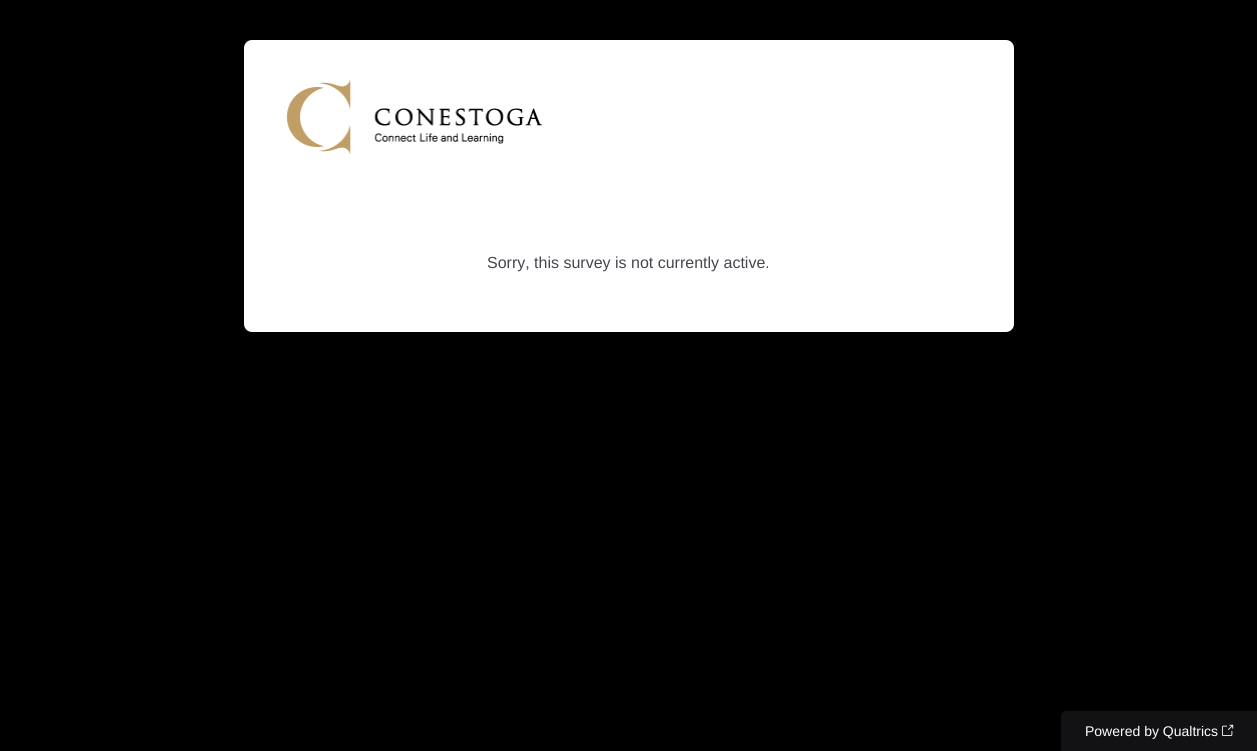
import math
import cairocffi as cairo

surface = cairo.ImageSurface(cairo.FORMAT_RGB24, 1257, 751)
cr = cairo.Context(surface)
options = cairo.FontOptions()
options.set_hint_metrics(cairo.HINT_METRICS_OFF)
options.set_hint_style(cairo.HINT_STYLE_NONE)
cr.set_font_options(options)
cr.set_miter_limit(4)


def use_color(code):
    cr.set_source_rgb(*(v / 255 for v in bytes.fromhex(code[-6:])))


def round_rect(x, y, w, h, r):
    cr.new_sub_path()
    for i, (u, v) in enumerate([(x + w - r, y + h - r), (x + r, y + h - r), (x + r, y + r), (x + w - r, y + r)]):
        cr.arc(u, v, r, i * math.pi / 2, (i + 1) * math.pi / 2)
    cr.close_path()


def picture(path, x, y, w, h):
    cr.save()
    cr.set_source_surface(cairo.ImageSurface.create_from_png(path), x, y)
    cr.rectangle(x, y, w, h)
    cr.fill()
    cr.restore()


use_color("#000000")
cr.paint()
use_color("#ffffff")
round_rect(244, 40, 770, 292, 8)
cr.fill()
picture("img1.png", 286, 79, 257, 76)
cr.select_font_face("Liberation Sans")
cr.set_font_size(16)
use_color("#43464d")
cr.move_to(487, 268)
cr.show_text("Sorry, this survey is not currently active.")
use_color("#121214")
cr.new_path()
cr.move_to(1066, 711)
cr.line_to(1257, 711)
cr.line_to(1257, 751)
cr.line_to(1061, 751)
cr.line_to(1061, 716)
cr.curve_to(1061, 713, 1063, 711, 1066, 711)
cr.close_path()
cr.fill()
cr.set_font_size(14)
use_color("#ffffff")
cr.move_to(1085, 736)
cr.show_text("Powered by Qualtrics")
picture("img2.png", 1222, 724, 12, 12)
surface.write_to_png("result.png")
